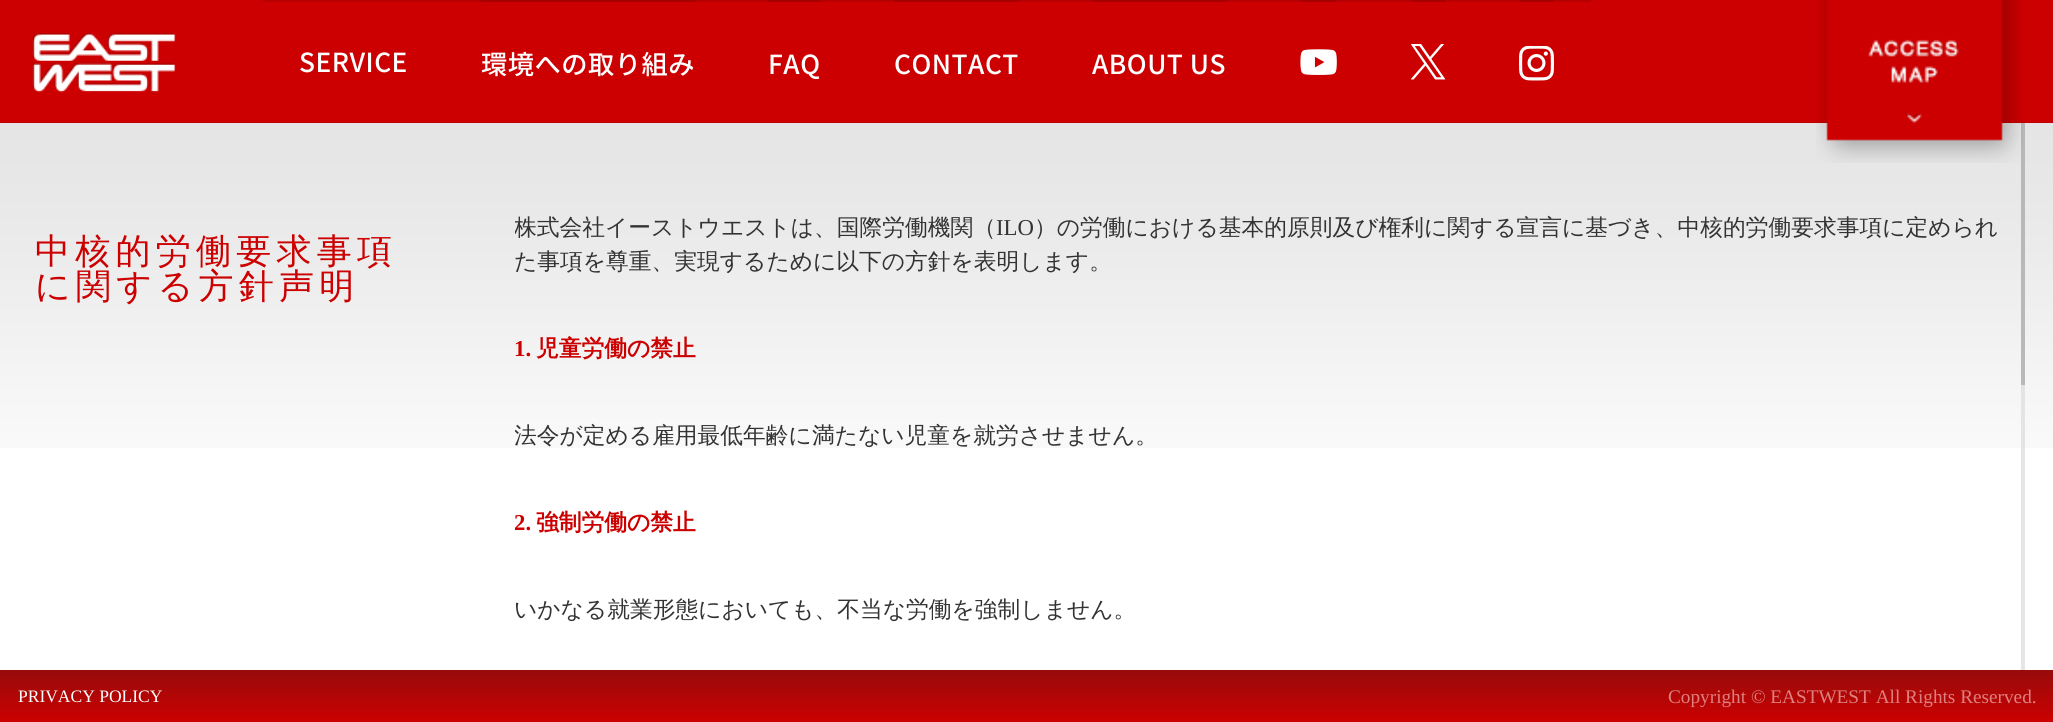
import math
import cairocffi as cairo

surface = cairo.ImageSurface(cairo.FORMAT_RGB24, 2053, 722)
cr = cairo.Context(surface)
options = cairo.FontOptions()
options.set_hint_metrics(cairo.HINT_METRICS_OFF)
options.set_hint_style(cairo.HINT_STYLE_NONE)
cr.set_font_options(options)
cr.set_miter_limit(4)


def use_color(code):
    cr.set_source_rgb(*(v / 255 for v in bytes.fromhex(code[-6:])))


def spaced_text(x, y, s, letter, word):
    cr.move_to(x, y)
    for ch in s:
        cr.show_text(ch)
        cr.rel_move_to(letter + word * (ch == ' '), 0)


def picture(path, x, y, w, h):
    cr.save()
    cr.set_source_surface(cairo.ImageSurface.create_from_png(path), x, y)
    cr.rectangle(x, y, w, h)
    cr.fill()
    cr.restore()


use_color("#cc0000")
cr.paint()
use_color("#b80000")
cr.rectangle(263, 0, 1328, 2)
cr.fill()
picture("img1.png", 32, 33, 144, 60)
cr.select_font_face("Noto Sans JP Medium")
cr.set_font_size(26.25)
use_color("#ffffff")
spaced_text(299, 72, "SERVICE", 0.5, 0)
use_color("#a60000")
cr.rectangle(481, 0, 214, 2)
cr.fill()
use_color("#ffffff")
spaced_text(481, 74, "環境への取り組み", 0.5, 0)
use_color("#a60000")
cr.rectangle(768, 0, 53, 2)
cr.fill()
use_color("#ffffff")
spaced_text(768, 74, "FAQ", 0.5, 0)
use_color("#a60000")
cr.rectangle(894, 0, 125, 2)
cr.fill()
use_color("#ffffff")
spaced_text(894, 74, "CONTACT", 0.5, 0)
use_color("#a60000")
cr.rectangle(1092, 0, 135, 2)
cr.fill()
use_color("#ffffff")
spaced_text(1092, 74, "ABOUT US", 0.5, 0)
picture("img2.png", 1300, 49, 37, 26)
use_color("#a60000")
cr.rectangle(1300, 0, 37, 2)
cr.fill()
picture("img3.png", 1411, 44, 35, 36)
cr.rectangle(1411, 0, 35, 2)
cr.fill()
picture("img4.png", 1519, 46, 35, 35)
cr.rectangle(1519, 0, 35, 2)
cr.fill()
use_color("#ffffff")
cr.rectangle(0, 123, 2053, 547)
cr.fill()
picture("img6.png", 0, 122, 2053, 326)
cr.set_source_rgba(0.867, 0.867, 0.867, 0.75)
cr.rectangle(2021, 123, 4, 547)
cr.fill()
cr.set_source_rgba(0.667, 0.667, 0.667, 0.75)
cr.rectangle(2021, 123, 4, 262)
cr.fill()
picture("img5.png", 1816, 0, 207, 163)
cr.select_font_face("WenQuanYi Zen Hei Medium")
cr.set_font_size(35)
use_color("#cc0000")
spaced_text(35, 263, "中核的労働要求事項", 5.25, 0)
spaced_text(35, 298, "に関する方針声明", 5.25, 0)
cr.save()
cr.rectangle(515, 123, 1487, 547)
cr.clip()
cr.set_font_size(22.75)
use_color("#333333")
cr.move_to(514, 235)
cr.show_text("株式会社イーストウエストは、国際労働機関（")
cr.restore()
cr.select_font_face("Liberation Serif")
cr.set_font_size(22.75)
use_color("#333333")
cr.move_to(996, 235)
cr.show_text("ILO")
cr.select_font_face("WenQuanYi Zen Hei Medium")
cr.move_to(1034, 235)
cr.show_text("）の労働における基本的原則及び権利に関する宣言に基づき、中核的労働要求事項に定められ")
cr.move_to(514, 269)
cr.show_text("た事項を尊重、実現するために以下の方針を表明します。")
cr.select_font_face("Liberation Serif", cairo.FONT_SLANT_NORMAL, cairo.FONT_WEIGHT_BOLD)
use_color("#cc0000")
cr.move_to(514, 356)
cr.show_text("1.")
cr.select_font_face("WenQuanYi Zen Hei", cairo.FONT_SLANT_NORMAL, cairo.FONT_WEIGHT_BOLD)
cr.move_to(536, 356)
cr.show_text("児童労働の禁止")
cr.save()
cr.rectangle(515, 123, 1487, 547)
cr.clip()
cr.select_font_face("WenQuanYi Zen Hei Medium")
use_color("#333333")
cr.move_to(514, 443)
cr.show_text("法令が定める雇用最低年齢に満たない児童を就労させません。")
cr.select_font_face("Liberation Serif", cairo.FONT_SLANT_NORMAL, cairo.FONT_WEIGHT_BOLD)
use_color("#cc0000")
cr.move_to(514, 530)
cr.show_text("2.")
cr.restore()
cr.move_to(536, 530)
cr.show_text("強制労働の禁止")
cr.select_font_face("WenQuanYi Zen Hei Medium")
use_color("#333333")
cr.move_to(514, 617)
cr.show_text("いかなる就業形態においても、不当な労働を強制しません。")
gradient = cairo.LinearGradient(1027, 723, 1027, 670)
gradient.add_color_stop_rgba(0, 0.8, 0, 0, 1)
gradient.add_color_stop_rgba(1, 0.596, 0.043, 0.043, 1)
cr.set_source(gradient)
cr.rectangle(0, 670, 2053, 50)
cr.fill()
cr.select_font_face("Liberation Serif")
cr.set_font_size(17.5)
use_color("#ffffff")
cr.move_to(18, 702)
cr.show_text("PRIVACY POLICY")
cr.set_font_size(19.25)
use_color("#df8080")
cr.move_to(1668, 703)
cr.show_text("Copyright © EASTWEST All Rights Reserved.")
surface.write_to_png("result.png")
